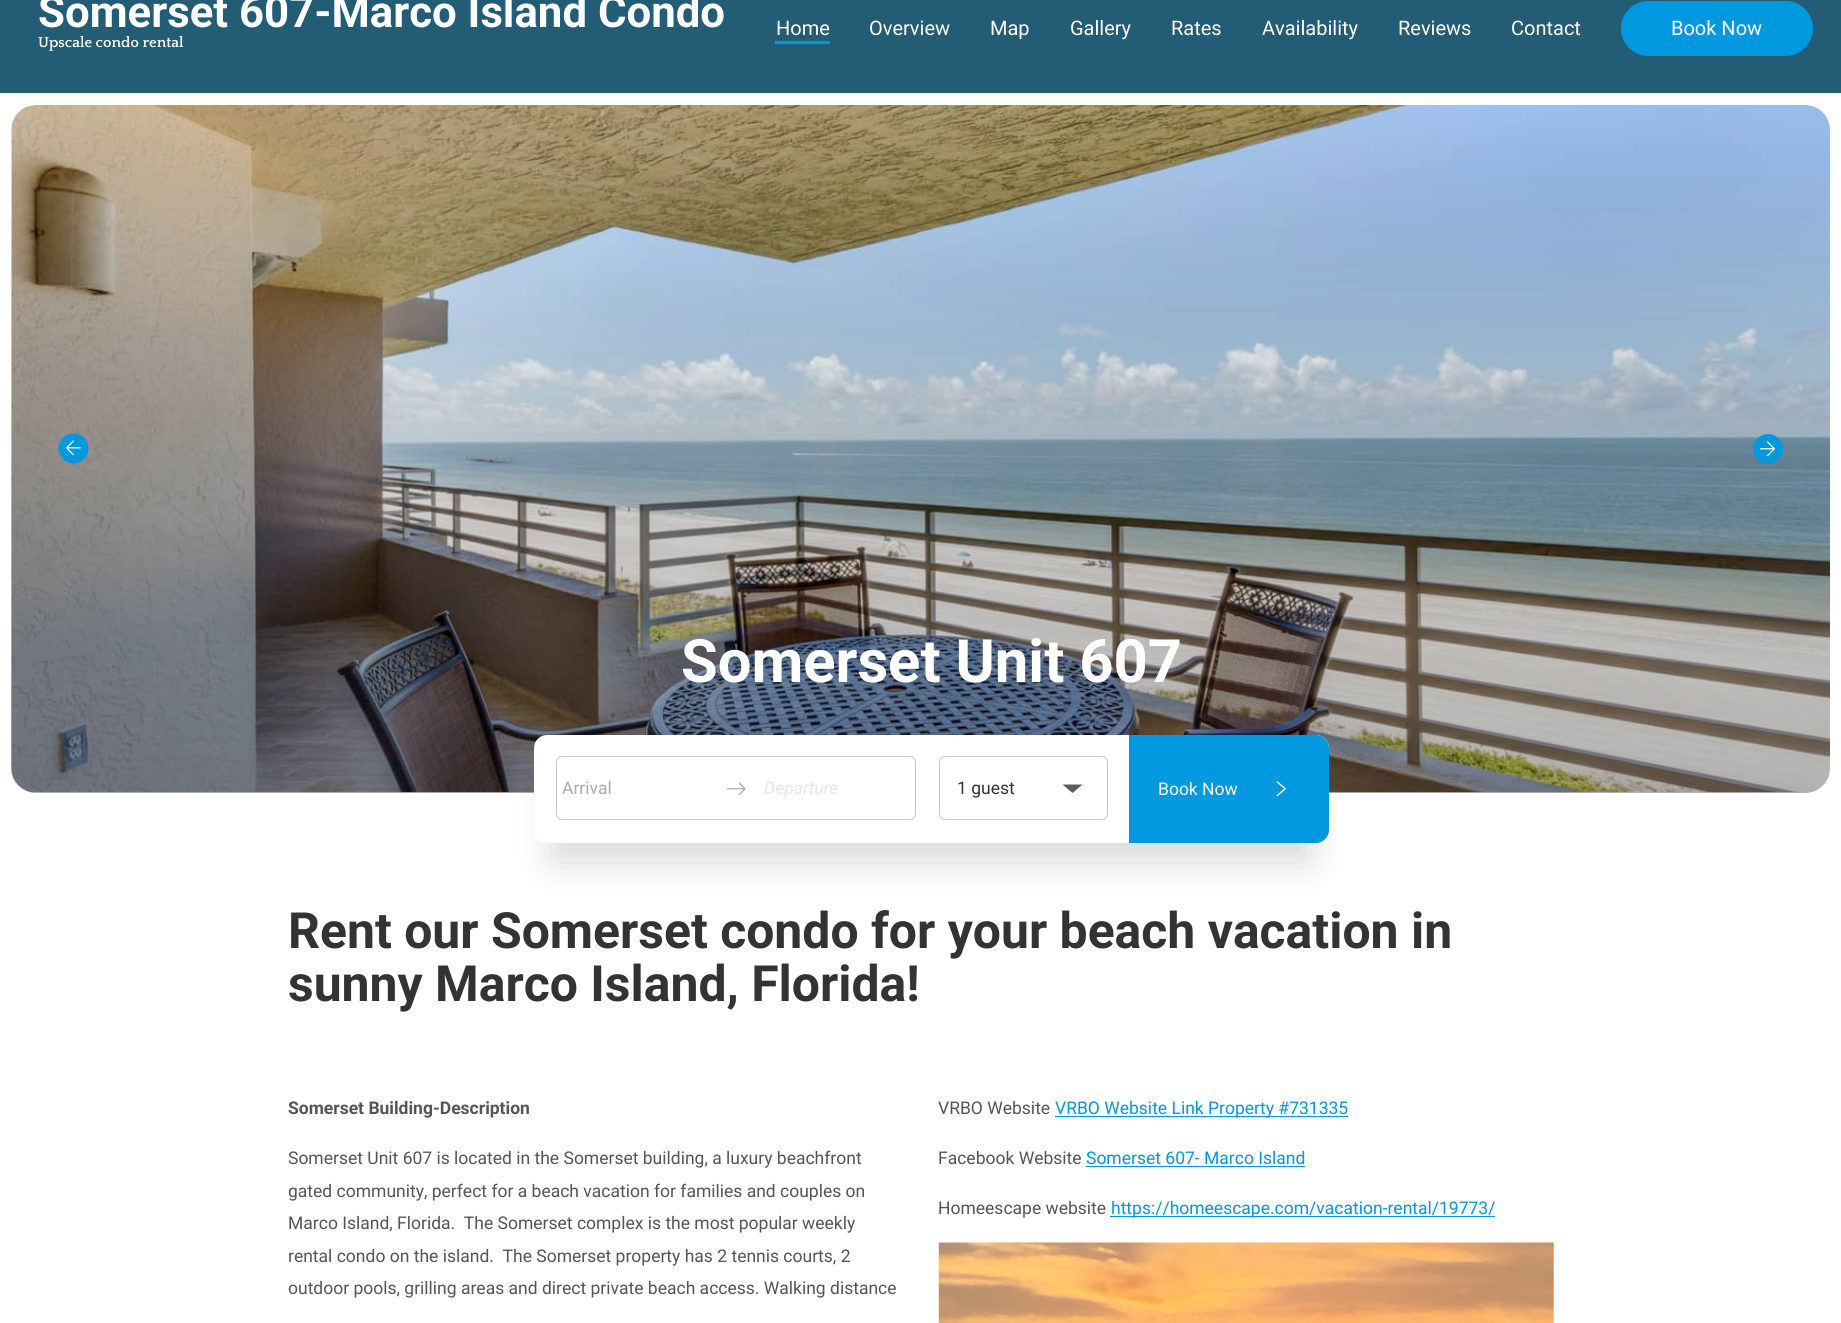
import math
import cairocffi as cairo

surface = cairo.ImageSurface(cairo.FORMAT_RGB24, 1841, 1323)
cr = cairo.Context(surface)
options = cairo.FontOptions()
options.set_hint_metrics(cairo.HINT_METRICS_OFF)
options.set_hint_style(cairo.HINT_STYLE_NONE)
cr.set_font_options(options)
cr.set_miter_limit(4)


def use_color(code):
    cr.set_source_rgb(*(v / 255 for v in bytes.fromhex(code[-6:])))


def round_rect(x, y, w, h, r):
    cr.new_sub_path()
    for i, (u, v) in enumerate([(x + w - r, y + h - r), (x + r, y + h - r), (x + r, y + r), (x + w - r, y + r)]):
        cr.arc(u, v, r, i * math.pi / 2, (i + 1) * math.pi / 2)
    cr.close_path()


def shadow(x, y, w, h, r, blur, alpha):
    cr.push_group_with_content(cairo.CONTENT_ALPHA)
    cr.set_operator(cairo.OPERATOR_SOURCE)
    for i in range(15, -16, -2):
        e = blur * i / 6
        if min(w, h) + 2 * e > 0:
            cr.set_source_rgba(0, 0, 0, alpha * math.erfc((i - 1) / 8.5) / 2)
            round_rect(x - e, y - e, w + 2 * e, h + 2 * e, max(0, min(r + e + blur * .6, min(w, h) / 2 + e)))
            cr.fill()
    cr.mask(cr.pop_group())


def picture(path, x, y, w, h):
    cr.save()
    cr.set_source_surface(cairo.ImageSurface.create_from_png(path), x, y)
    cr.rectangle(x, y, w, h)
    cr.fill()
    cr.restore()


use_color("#ffffff")
cr.paint()
use_color("#225c75")
cr.rectangle(0, 0, 1841, 93)
cr.fill()
cr.select_font_face("Roboto", cairo.FONT_SLANT_NORMAL, cairo.FONT_WEIGHT_BOLD)
cr.set_font_size(43.75)
use_color("#ffffff")
cr.move_to(38, 27)
cr.show_text("Somerset 607-Marco Island Condo")
cr.select_font_face("Quattrocento", cairo.FONT_SLANT_NORMAL, cairo.FONT_WEIGHT_BOLD)
cr.set_font_size(15)
cr.move_to(38, 47)
cr.show_text("Upscale condo rental")
cr.select_font_face("Roboto")
cr.set_font_size(20)
cr.move_to(776, 35)
cr.show_text("Home")
use_color("#0098de")
cr.rectangle(775, 41, 55, 3)
cr.fill()
use_color("#ffffff")
cr.move_to(869, 35)
cr.show_text("Overview")
cr.move_to(990, 35)
cr.show_text("Map")
cr.move_to(1070, 35)
cr.show_text("Gallery")
cr.move_to(1171, 35)
cr.show_text("Rates")
cr.move_to(1262, 35)
cr.show_text("Availability")
cr.move_to(1398, 35)
cr.show_text("Reviews")
cr.move_to(1511, 35)
cr.show_text("Contact")
use_color("#0098de")
round_rect(1621, 1, 192, 55, 27.5)
cr.fill()
use_color("#ffffff")
cr.move_to(1671, 35)
cr.show_text("Book Now")
picture("img1.png", 11, 105, 1819, 688)
gradient = cairo.LinearGradient(921, 105, 921, 793)
gradient.add_color_stop_rgba(0, 0, 0, 0, 0)
gradient.add_color_stop_rgba(1, 0, 0, 0, 0.3)
cr.set_source(gradient)
round_rect(11, 105, 1819, 688, 25)
cr.fill()
use_color("#0098de")
cr.new_path()
cr.move_to(73.5, 463.5)
cr.curve_to(65.5, 463.5, 58.5, 456.5, 58.5, 448.5)
cr.curve_to(58.5, 440, 65.5, 433.5, 73.5, 433.5)
cr.curve_to(82, 433.5, 88.5, 440, 88.5, 448.5)
cr.curve_to(88.5, 456.5, 82, 463.5, 73.5, 463.5)
cr.close_path()
cr.fill()
picture("img2.png", 65, 440, 16, 16)
cr.arc(1768, 449, 15, 0, 2 * math.pi)
cr.fill()
picture("img3.png", 1760, 441, 15, 16)
cr.select_font_face("Roboto", cairo.FONT_SLANT_NORMAL, cairo.FONT_WEIGHT_BOLD)
cr.set_font_size(59.75)
use_color("#ffffff")
cr.move_to(681, 682)
cr.show_text("Somerset Unit 607")
use_color("#000000")
shadow(553, 765, 757, 96, 0, 19, 0.15)
use_color("#ffffff")
round_rect(534, 735, 795, 108, 13)
cr.fill()
round_rect(556.5, 756.5, 359, 63, 5.5)
use_color("#c6c6c6")
cr.set_line_width(1)
cr.stroke()
cr.select_font_face("Roboto")
cr.set_font_size(17.5)
use_color("#aaaaaa")
cr.move_to(562, 794)
cr.show_text("Arrival")
picture("img4.png", 727, 782, 19, 13)
cr.select_font_face("Roboto", cairo.FONT_SLANT_ITALIC)
use_color("#e6e6e6")
cr.move_to(764, 794)
cr.show_text("Departure")
round_rect(939.5, 756.5, 168, 63, 5.5)
use_color("#c6c6c6")
cr.stroke()
cr.select_font_face("Roboto")
use_color("#333333")
cr.move_to(957, 794)
cr.show_text("1 guest")
use_color("#5c5c5c")
cr.new_path()
cr.move_to(1082.5, 784.5)
cr.line_to(1072.5, 793)
cr.line_to(1062.5, 784.5)
cr.close_path()
cr.fill()
use_color("#0098de")
cr.new_path()
cr.move_to(1129, 735)
cr.line_to(1316, 735)
cr.curve_to(1323, 735, 1329, 741, 1329, 748)
cr.line_to(1329, 830)
cr.curve_to(1329, 837, 1323, 843, 1316, 843)
cr.line_to(1129, 843)
cr.close_path()
cr.fill()
use_color("#ffffff")
cr.move_to(1158, 795)
cr.show_text("Book Now")
picture("img5.png", 1276, 781, 10, 16)
cr.select_font_face("Roboto", cairo.FONT_SLANT_NORMAL, cairo.FONT_WEIGHT_BOLD)
cr.set_font_size(49.9)
use_color("#333333")
cr.move_to(288, 948)
cr.show_text("Rent our Somerset condo for your beach vacation in")
cr.move_to(288, 1001)
cr.show_text("sunny Marco Island, Florida!")
cr.set_font_size(17.5)
use_color("#555555")
cr.move_to(288, 1114)
cr.show_text("Somerset Building-Description")
cr.select_font_face("Roboto")
cr.move_to(288, 1164)
cr.show_text("Somerset Unit 607 is located in the Somerset building, a luxury beachfront")
cr.move_to(288, 1197)
cr.show_text("gated community, perfect for a beach vacation for families and couples on")
cr.move_to(288, 1229)
cr.show_text("Marco Island, Florida.  The Somerset complex is the most popular weekly")
cr.move_to(288, 1262)
cr.show_text("rental condo on the island.  The Somerset property has 2 tennis courts, 2")
cr.move_to(288, 1294)
cr.show_text("outdoor pools, grilling areas and direct private beach access. Walking distance")
cr.move_to(938, 1114)
cr.show_text("VRBO Website")
use_color("#0098de")
cr.rectangle(1055, 1116, 293, 1)
cr.fill()
cr.move_to(1055, 1114)
cr.show_text("VRBO Website Link Property #731335")
use_color("#555555")
cr.move_to(938, 1164)
cr.show_text("Facebook Website")
use_color("#0098de")
cr.move_to(1086, 1164)
cr.show_text("Somerset 607- Marco Island")
cr.rectangle(1086, 1166, 219, 1)
cr.fill()
use_color("#555555")
cr.move_to(938, 1214)
cr.show_text("Homeescape website")
use_color("#0098de")
cr.rectangle(1110, 1216, 385, 1)
cr.fill()
cr.move_to(1111, 1214)
cr.show_text("https://homeescape.com/vacation-rental/19773/")
picture("img6.png", 938, 1242, 616, 81)
surface.write_to_png("result.png")
